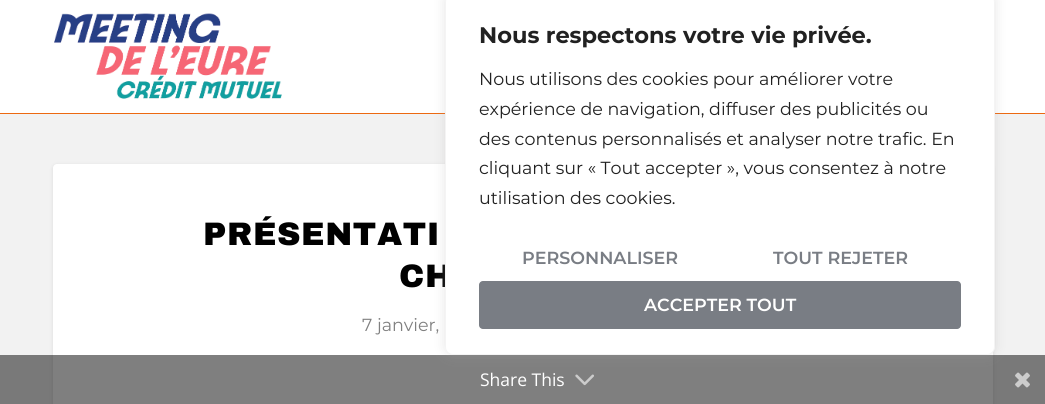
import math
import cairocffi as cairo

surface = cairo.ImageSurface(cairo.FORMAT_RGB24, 1045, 404)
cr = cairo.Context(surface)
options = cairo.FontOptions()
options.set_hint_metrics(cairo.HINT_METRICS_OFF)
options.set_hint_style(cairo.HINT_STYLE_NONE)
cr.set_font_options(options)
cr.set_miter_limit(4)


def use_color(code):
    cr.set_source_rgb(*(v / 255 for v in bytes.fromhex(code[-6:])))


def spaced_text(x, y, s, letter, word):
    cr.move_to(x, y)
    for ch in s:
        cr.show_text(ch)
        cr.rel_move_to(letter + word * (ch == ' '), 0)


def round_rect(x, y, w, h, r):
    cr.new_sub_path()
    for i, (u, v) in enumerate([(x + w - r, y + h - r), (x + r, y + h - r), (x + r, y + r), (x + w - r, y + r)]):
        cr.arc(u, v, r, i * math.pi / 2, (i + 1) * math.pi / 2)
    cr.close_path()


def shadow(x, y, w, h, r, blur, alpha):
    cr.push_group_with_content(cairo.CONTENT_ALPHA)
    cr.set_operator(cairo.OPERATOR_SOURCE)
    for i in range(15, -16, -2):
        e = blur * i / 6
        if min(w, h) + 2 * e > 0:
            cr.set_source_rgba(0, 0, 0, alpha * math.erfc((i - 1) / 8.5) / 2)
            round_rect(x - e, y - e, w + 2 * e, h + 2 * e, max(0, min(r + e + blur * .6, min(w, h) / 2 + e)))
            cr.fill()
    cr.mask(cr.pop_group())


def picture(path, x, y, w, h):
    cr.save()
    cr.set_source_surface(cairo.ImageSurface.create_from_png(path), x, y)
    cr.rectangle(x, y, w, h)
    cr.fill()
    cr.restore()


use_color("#f2f2f2")
cr.paint()
use_color("#ffffff")
cr.rectangle(0, 0, 1045, 113)
cr.fill()
use_color("#ec6911")
cr.rectangle(0, 113, 1045, 1)
cr.fill()
picture("img1.png", 54, 13, 228, 86)
use_color("#000000")
shadow(53, 165, 940, 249, 4, 2, 0.1)
use_color("#ffffff")
round_rect(53, 164, 940, 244, 4)
cr.fill()
cr.select_font_face("Archivo Black Black")
cr.set_font_size(32.5)
use_color("#000000")
spaced_text(203, 245, "PRÉSENTATI", 0.6, 0)
spaced_text(399, 287, "CH", 0.6, 0)
cr.select_font_face("Montserrat")
cr.set_font_size(17.5)
use_color("#808080")
cr.move_to(362, 331)
cr.show_text("7 janvier,")
cr.set_source_rgba(0, 0, 0, 0.5)
cr.rectangle(0, 355, 1045, 49)
cr.fill()
use_color("#acabab")
shadow(445, -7, 550, 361, 8, 6, 0.3)
use_color("#ffffff")
round_rect(445.5, -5.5, 549, 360, 7.5)
cr.fill_preserve()
use_color("#f4f4f4")
cr.set_line_width(1)
cr.stroke()
cr.select_font_face("Montserrat", cairo.FONT_SLANT_NORMAL, cairo.FONT_WEIGHT_BOLD)
cr.set_font_size(22.5)
use_color("#212121")
cr.move_to(479, 43)
cr.show_text("Nous respectons votre vie privée.")
cr.select_font_face("Montserrat")
cr.set_font_size(17.5)
cr.move_to(479, 85)
cr.show_text("Nous utilisons des cookies pour améliorer votre")
cr.move_to(479, 115)
cr.show_text("expérience de navigation, diffuser des publicités ou")
cr.move_to(479, 145)
cr.show_text("des contenus personnalisés et analyser notre trafic. En")
cr.move_to(479, 174)
cr.show_text("cliquant sur « Tout accepter », vous consentez à notre")
cr.move_to(479, 204)
cr.show_text("utilisation des cookies.")
cr.select_font_face("Montserrat SemiBold")
use_color("#797d84")
cr.move_to(522, 264)
cr.show_text("PERSONNALISER")
cr.move_to(773, 264)
cr.show_text("TOUT REJETER")
round_rect(479, 281, 482, 48, 4)
cr.fill()
use_color("#ffffff")
cr.move_to(644, 311)
cr.show_text("ACCEPTER TOUT")
cr.select_font_face("Open Sans")
cr.move_to(480, 386)
cr.show_text("Share This")
picture("img2.png", 575, 374, 19, 12)
picture("img3.png", 1015, 372, 15, 16)
surface.write_to_png("result.png")
